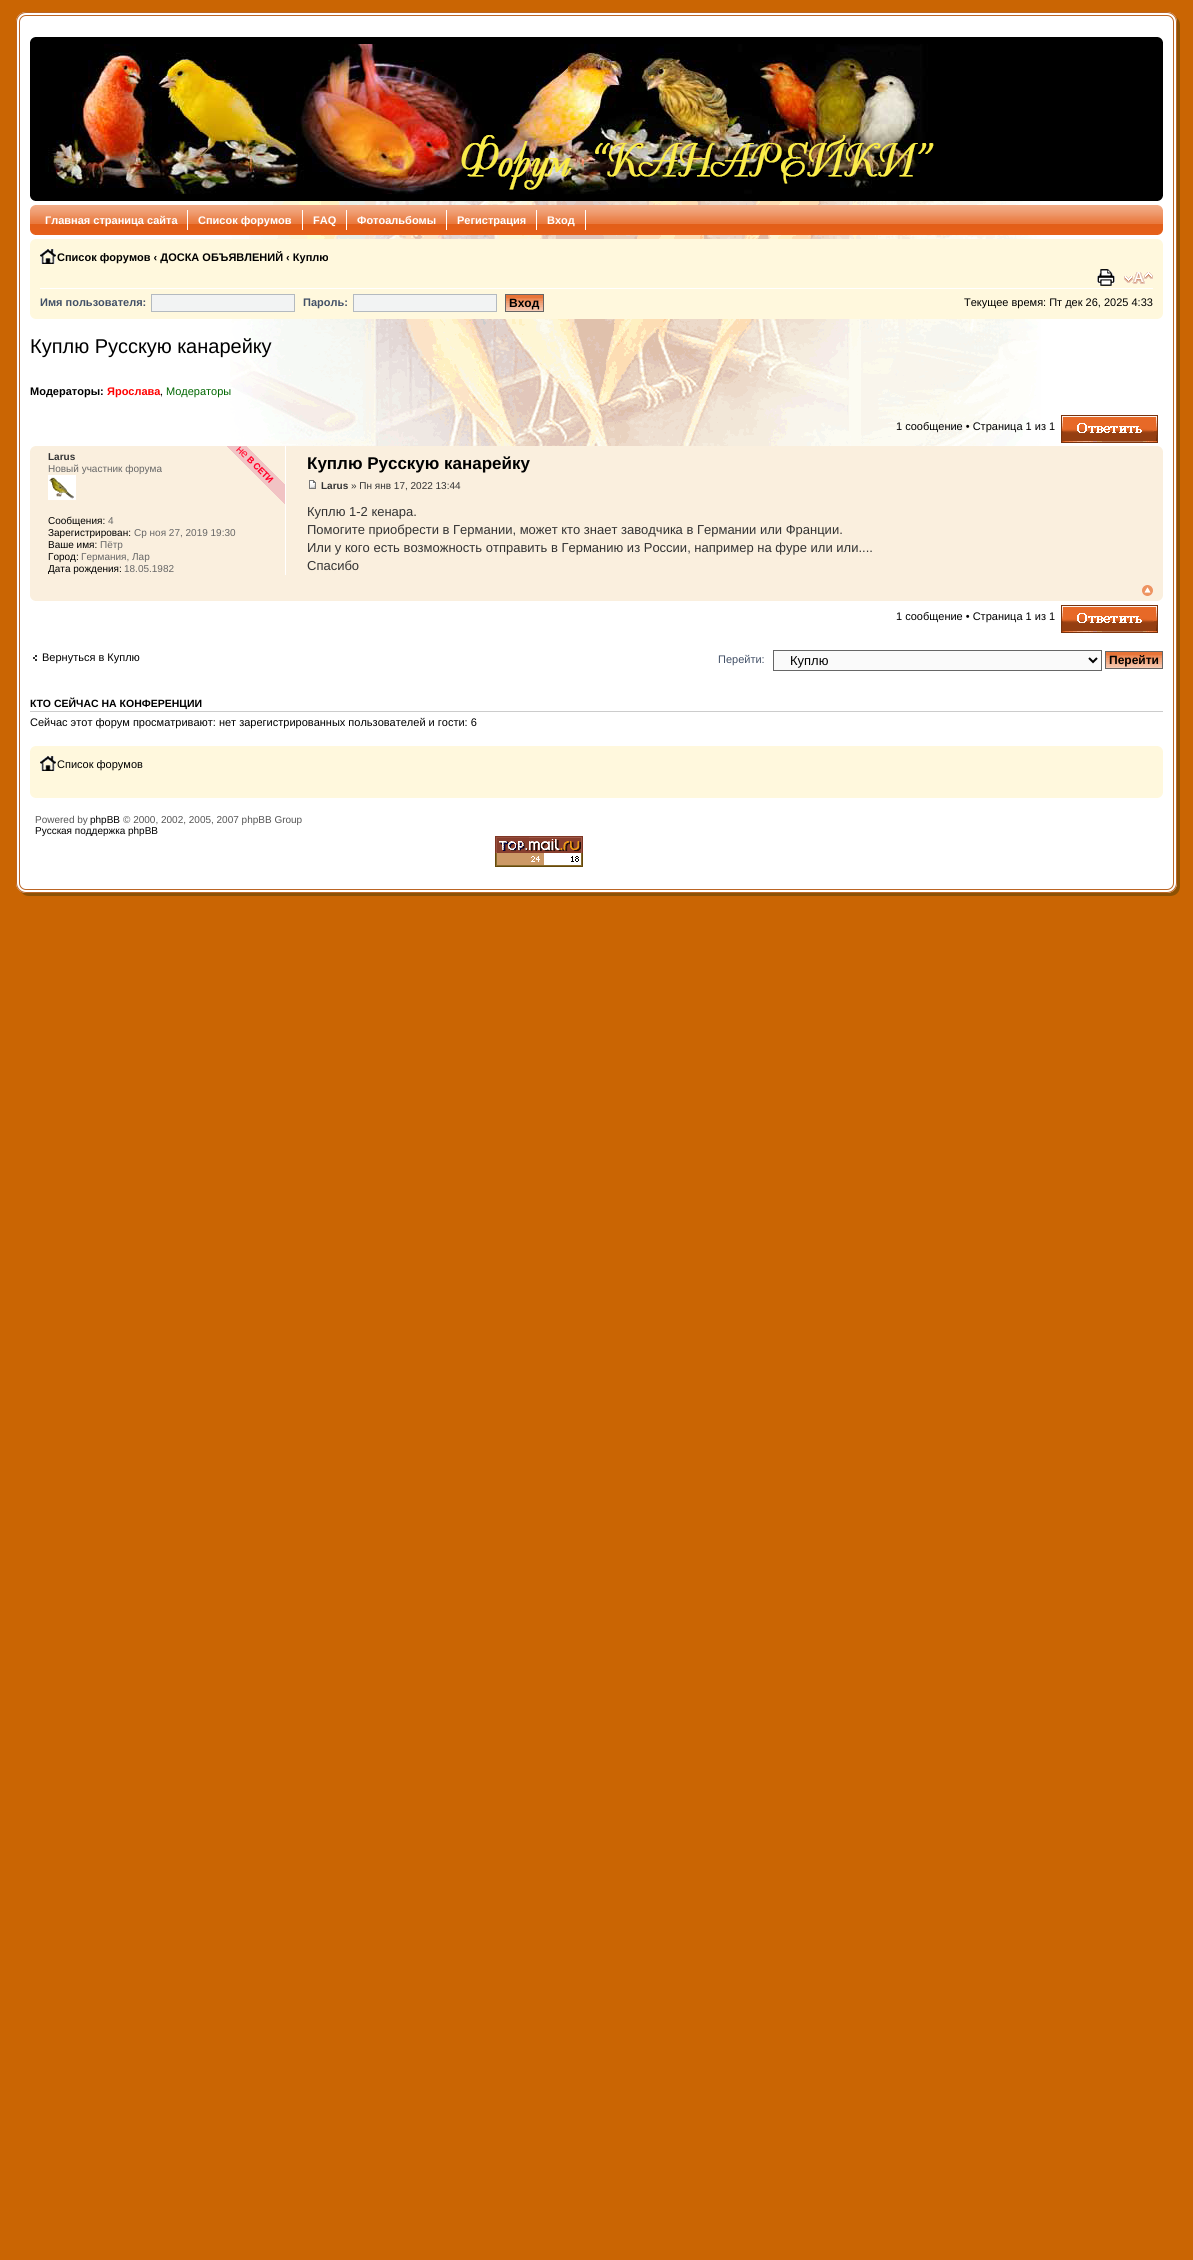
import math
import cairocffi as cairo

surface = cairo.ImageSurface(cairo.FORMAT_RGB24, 1193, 2260)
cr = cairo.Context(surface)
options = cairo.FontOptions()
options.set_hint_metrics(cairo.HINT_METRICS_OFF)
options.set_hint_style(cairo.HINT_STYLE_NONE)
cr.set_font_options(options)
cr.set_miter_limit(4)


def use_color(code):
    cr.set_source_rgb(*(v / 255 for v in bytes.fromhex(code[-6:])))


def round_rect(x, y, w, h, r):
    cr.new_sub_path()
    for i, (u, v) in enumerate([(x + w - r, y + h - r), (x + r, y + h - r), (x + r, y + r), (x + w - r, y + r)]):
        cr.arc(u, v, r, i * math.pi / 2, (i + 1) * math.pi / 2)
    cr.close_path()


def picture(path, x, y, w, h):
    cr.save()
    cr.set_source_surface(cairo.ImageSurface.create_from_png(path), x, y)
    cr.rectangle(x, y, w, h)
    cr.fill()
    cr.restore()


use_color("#ca6503")
cr.paint()
use_color("#8d5104")
cr.new_path()
cr.move_to(21, 891)
cr.curve_to(22, 894, 25, 896, 29, 896)
cr.line_to(1170, 896)
cr.curve_to(1176, 896, 1180, 892, 1180, 886)
cr.line_to(1180, 25)
cr.curve_to(1180, 21, 1178, 18, 1175, 17)
cr.curve_to(1176, 18, 1177, 20, 1177, 22)
cr.line_to(1177, 883)
cr.curve_to(1177, 889, 1173, 893, 1167, 893)
cr.line_to(26, 893)
cr.curve_to(24, 893, 22, 892, 21, 891)
cr.close_path()
cr.fill()
use_color("#ffffff")
round_rect(16, 12, 1161, 881, 10)
cr.fill()
picture("img1.png", 230, 201, 811, 245)
round_rect(16.5, 12.5, 1160, 880, 9.5)
use_color("#bb6525")
cr.set_line_width(1)
cr.stroke()
round_rect(19.5, 15.5, 1154, 874, 6.5)
cr.stroke()
use_color("#000000")
cr.rectangle(30, 37, 1133, 164)
cr.fill()
picture("img2.png", 30, 37, 6, 5)
picture("img3.png", 1157, 37, 6, 5)
picture("img4.png", 45, 44, 889, 150)
picture("img5.png", 30, 196, 5, 5)
picture("img6.png", 1158, 196, 5, 5)
picture("img7.png", 30, 205, 1133, 30)
picture("img8.png", 30, 205, 5, 5)
picture("img9.png", 1158, 205, 5, 5)
use_color("#ffffff")
cr.rectangle(187, 210, 1, 20)
cr.fill()
cr.select_font_face("Liberation Sans", cairo.FONT_SLANT_NORMAL, cairo.FONT_WEIGHT_BOLD)
cr.set_font_size(11)
cr.move_to(45, 224)
cr.show_text("Главная страница сайта")
cr.rectangle(302, 210, 1, 20)
cr.fill()
cr.move_to(198, 224)
cr.show_text("Список форумов")
cr.rectangle(346, 210, 1, 20)
cr.fill()
cr.move_to(313, 224)
cr.show_text("FAQ")
cr.rectangle(446, 210, 1, 20)
cr.fill()
cr.move_to(357, 224)
cr.show_text("Фотоальбомы")
cr.rectangle(536, 210, 1, 20)
cr.fill()
cr.move_to(457, 224)
cr.show_text("Регистрация")
cr.rectangle(585, 210, 1, 20)
cr.fill()
cr.move_to(547, 224)
cr.show_text("Вход")
picture("img10.png", 30, 230, 5, 5)
picture("img11.png", 1158, 230, 5, 5)
use_color("#fff8dd")
cr.rectangle(30, 239, 1133, 80)
cr.fill()
picture("img12.png", 30, 239, 5, 5)
picture("img13.png", 1158, 239, 5, 5)
use_color("#ffffff")
cr.rectangle(40, 288, 1113, 1)
cr.fill()
picture("img14.png", 40, 249, 16, 15)
use_color("#000000")
cr.move_to(57, 261)
cr.show_text("Список форумов ‹ ДОСКА ОБЪЯВЛЕНИЙ ‹ Куплю")
picture("img15.png", 1097, 269, 18, 17)
picture("img16.png", 1124, 272, 29, 12)
use_color("#425067")
cr.move_to(40, 306)
cr.show_text("Имя пользователя:")
use_color("#f2f3f3")
cr.rectangle(151.5, 294.5, 143, 17)
cr.fill_preserve()
use_color("#b4bac0")
cr.stroke()
use_color("#425067")
cr.move_to(303, 306)
cr.show_text("Пароль:")
use_color("#f2f3f3")
cr.rectangle(353.5, 294.5, 143, 17)
cr.fill_preserve()
use_color("#b4bac0")
cr.stroke()
picture("img17.png", 506, 295, 37, 16)
cr.rectangle(505.5, 294.5, 38, 17)
use_color("#666666")
cr.stroke()
cr.set_font_size(12)
use_color("#000000")
cr.move_to(509, 307)
cr.show_text("Вход")
cr.select_font_face("Liberation Sans")
cr.set_font_size(11)
cr.move_to(964, 306)
cr.show_text("Текущее время: Пт дек 26, 2025 4:33")
picture("img18.png", 30, 314, 5, 5)
picture("img19.png", 1158, 314, 5, 5)
cr.set_font_size(20)
cr.move_to(30, 353)
cr.show_text("Куплю Русскую канарейку")
cr.select_font_face("Liberation Sans", cairo.FONT_SLANT_NORMAL, cairo.FONT_WEIGHT_BOLD)
cr.set_font_size(11)
cr.move_to(30, 395)
cr.show_text("Модераторы:")
use_color("#ff0000")
cr.move_to(107, 395)
cr.show_text("Ярослава")
cr.select_font_face("Liberation Sans")
use_color("#000000")
cr.move_to(160, 395)
cr.show_text(",")
use_color("#006600")
cr.move_to(166, 395)
cr.show_text("Модераторы")
use_color("#000000")
cr.move_to(896, 430)
cr.show_text("1 сообщение • Страница 1 из 1")
picture("img20.png", 1061, 415, 97, 28)
use_color("#faefde")
cr.rectangle(30, 446, 1133, 155)
cr.fill()
picture("img21.png", 30, 446, 5, 5)
picture("img22.png", 1158, 446, 5, 5)
picture("img23.png", 227, 446, 58, 58)
use_color("#ffffff")
cr.rectangle(285, 446, 1, 129)
cr.fill()
cr.select_font_face("Liberation Sans", cairo.FONT_SLANT_NORMAL, cairo.FONT_WEIGHT_BOLD)
cr.set_font_size(10)
use_color("#333333")
cr.move_to(48, 460)
cr.show_text("Larus")
cr.select_font_face("Liberation Sans")
use_color("#666666")
cr.move_to(48, 472)
cr.show_text("Новый участник форума")
picture("img24.png", 48, 475, 28, 25)
use_color("#000000")
cr.move_to(48, 524)
cr.show_text("Сообщения:")
use_color("#666666")
cr.move_to(108, 524)
cr.show_text("4")
use_color("#000000")
cr.move_to(48, 536)
cr.show_text("Зарегистрирован:")
use_color("#666666")
cr.move_to(134, 536)
cr.show_text("Ср ноя 27, 2019 19:30")
use_color("#000000")
cr.move_to(48, 548)
cr.show_text("Ваше имя:")
use_color("#666666")
cr.move_to(100, 548)
cr.show_text("Пётр")
use_color("#000000")
cr.move_to(48, 560)
cr.show_text("Город:")
use_color("#666666")
cr.move_to(81, 560)
cr.show_text("Германия, Лар")
use_color("#000000")
cr.move_to(48, 572)
cr.show_text("Дата рождения:")
use_color("#666666")
cr.move_to(124, 572)
cr.show_text("18.05.1982")
cr.select_font_face("Liberation Sans", cairo.FONT_SLANT_NORMAL, cairo.FONT_WEIGHT_BOLD)
cr.set_font_size(17)
use_color("#000000")
cr.move_to(307, 469)
cr.show_text("Куплю Русскую канарейку")
picture("img25.png", 309, 480, 7, 9)
cr.set_font_size(10)
use_color("#333333")
cr.move_to(321, 489)
cr.show_text("Larus")
cr.select_font_face("Liberation Sans")
cr.move_to(351, 489)
cr.show_text("» Пн янв 17, 2022 13:44")
cr.set_font_size(13)
cr.move_to(307, 516)
cr.show_text("Куплю 1-2 кенара.")
cr.move_to(307, 534)
cr.show_text("Помогите приобрести в Германии, может кто знает заводчика в Германии или Франции.")
cr.move_to(307, 552)
cr.show_text("Или у кого есть возможность отправить в Германию из России, например на фуре или или....")
cr.move_to(307, 570)
cr.show_text("Спасибо")
picture("img26.png", 1142, 585, 11, 11)
picture("img27.png", 30, 596, 5, 5)
picture("img28.png", 1158, 596, 5, 5)
cr.set_font_size(11)
use_color("#000000")
cr.move_to(896, 620)
cr.show_text("1 сообщение • Страница 1 из 1")
picture("img20.png", 1061, 605, 97, 28)
picture("img29.png", 33, 655, 4, 6)
cr.move_to(42, 661)
cr.show_text("Вернуться в Куплю")
use_color("#425067")
cr.move_to(718, 663)
cr.show_text("Перейти:")
use_color("#fafafa")
cr.rectangle(773.5, 650.5, 328, 20)
cr.fill_preserve()
use_color("#666666")
cr.stroke()
cr.new_path()
cr.move_to(1089, 658)
cr.line_to(1093, 662)
cr.line_to(1097, 658)
use_color("#000000")
cr.set_line_width(2)
cr.stroke()
cr.set_font_size(13)
cr.move_to(790, 665)
cr.show_text("Куплю")
picture("img30.png", 1106, 652, 56, 16)
cr.rectangle(1105.5, 651.5, 57, 17)
use_color("#666666")
cr.set_line_width(1)
cr.stroke()
cr.select_font_face("Liberation Sans", cairo.FONT_SLANT_NORMAL, cairo.FONT_WEIGHT_BOLD)
cr.set_font_size(12)
use_color("#000000")
cr.move_to(1109, 664)
cr.show_text("Перейти")
use_color("#cccccc")
cr.rectangle(30, 711, 1133, 1)
cr.fill()
cr.set_font_size(10.5)
use_color("#000000")
cr.move_to(30, 707)
cr.show_text("КТО СЕЙЧАС НА КОНФЕРЕНЦИИ")
cr.select_font_face("Liberation Sans")
cr.set_font_size(11)
cr.move_to(30, 726)
cr.show_text("Сейчас этот форум просматривают: нет зарегистрированных пользователей и гости: 6")
use_color("#fff8dd")
cr.rectangle(30, 746, 1133, 52)
cr.fill()
picture("img12.png", 30, 746, 5, 5)
picture("img13.png", 1158, 746, 5, 5)
picture("img14.png", 40, 756, 16, 15)
use_color("#000000")
cr.move_to(57, 768)
cr.show_text("Список форумов")
picture("img18.png", 30, 793, 5, 5)
picture("img19.png", 1158, 793, 5, 5)
cr.set_font_size(10)
use_color("#555555")
cr.move_to(35, 823)
cr.show_text("Powered by")
use_color("#000000")
cr.move_to(90, 823)
cr.show_text("phpBB")
use_color("#555555")
cr.move_to(123, 823)
cr.show_text("© 2000, 2002, 2005, 2007 phpBB Group")
use_color("#000000")
cr.move_to(35, 834)
cr.show_text("Русская поддержка phpBB")
picture("img31.png", 495, 836, 88, 31)
surface.write_to_png("result.png")
